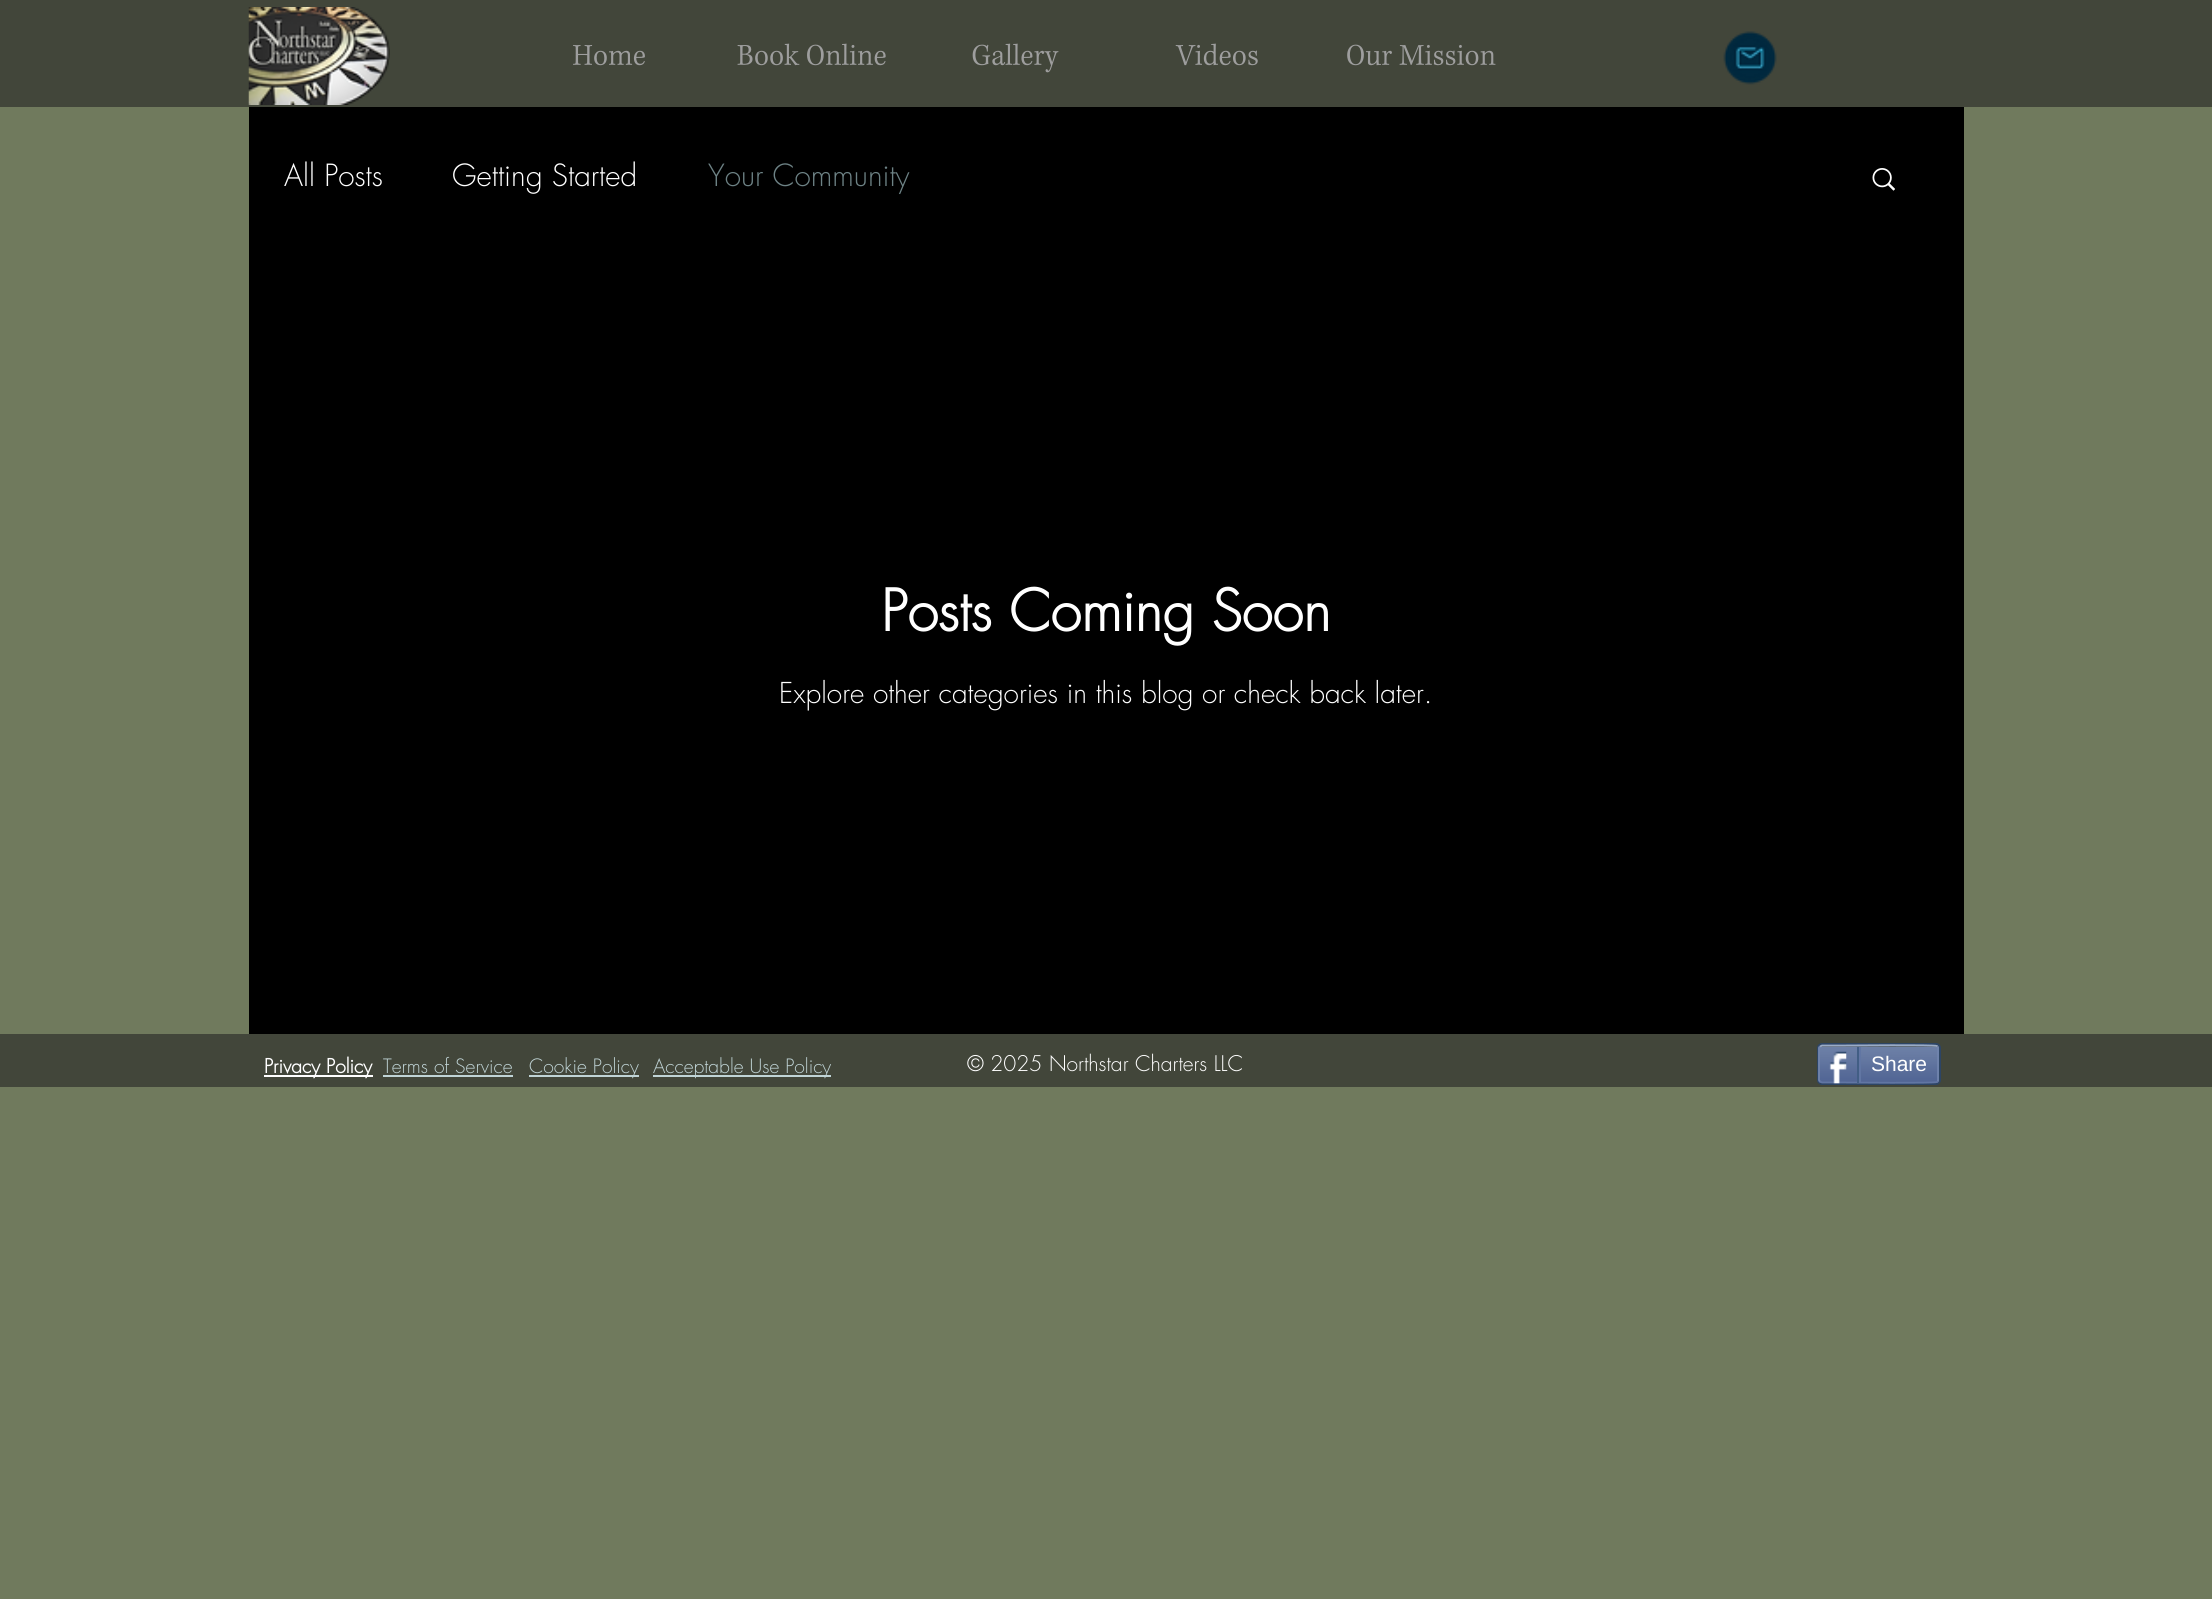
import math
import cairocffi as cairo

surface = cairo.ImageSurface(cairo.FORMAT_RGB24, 2212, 1599)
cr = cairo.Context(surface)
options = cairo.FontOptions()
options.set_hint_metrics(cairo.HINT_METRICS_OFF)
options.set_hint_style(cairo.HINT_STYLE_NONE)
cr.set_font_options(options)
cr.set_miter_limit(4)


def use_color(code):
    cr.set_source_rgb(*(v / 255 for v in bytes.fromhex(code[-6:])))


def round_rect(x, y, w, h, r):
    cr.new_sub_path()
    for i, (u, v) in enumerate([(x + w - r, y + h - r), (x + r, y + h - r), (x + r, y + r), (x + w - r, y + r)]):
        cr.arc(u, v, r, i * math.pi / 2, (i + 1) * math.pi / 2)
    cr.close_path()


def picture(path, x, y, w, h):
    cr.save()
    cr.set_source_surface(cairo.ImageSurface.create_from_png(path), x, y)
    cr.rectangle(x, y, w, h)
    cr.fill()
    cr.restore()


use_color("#707a5d")
cr.paint()
use_color("#42463a")
cr.rectangle(0, 0, 2212, 107)
cr.fill()
picture("img1.png", 248, 7, 142, 98)
picture("img2.png", 573, 45, 72, 21)
picture("img3.png", 737, 43, 149, 23)
picture("img4.png", 972, 43, 87, 30)
picture("img5.png", 1175, 43, 83, 23)
picture("img6.png", 1347, 44, 149, 22)
picture("img7.png", 1723, 31, 54, 54)
use_color("#000000")
cr.rectangle(249, 107, 1715, 927)
cr.fill()
cr.select_font_face("futura Light")
cr.set_font_size(29.75)
use_color("#ffffff")
cr.move_to(284, 186)
cr.show_text("All Posts")
cr.move_to(452, 186)
cr.show_text("Getting Started")
use_color("#6d8285")
cr.move_to(708, 186)
cr.show_text("Your Community")
picture("img8.png", 1872, 168, 23, 23)
cr.select_font_face("futura", cairo.FONT_SLANT_NORMAL, cairo.FONT_WEIGHT_BOLD)
cr.set_font_size(56)
use_color("#ffffff")
cr.move_to(881, 631)
cr.show_text("Posts Coming Soon")
cr.select_font_face("futura Light")
cr.set_font_size(28)
cr.move_to(779, 703)
cr.show_text("Explore other categories in this blog or check back later.")
use_color("#42463a")
cr.rectangle(0, 1034, 2212, 53)
cr.fill()
use_color("#ffffff")
cr.rectangle(264, 1075, 109, 2)
cr.fill()
cr.select_font_face("futura", cairo.FONT_SLANT_NORMAL, cairo.FONT_WEIGHT_BOLD)
cr.set_font_size(19.25)
cr.move_to(264, 1073)
cr.show_text("Privacy Policy")
cr.select_font_face("futura Light")
use_color("#c0d4d6")
cr.move_to(383, 1073)
cr.show_text("Terms of Service")
cr.rectangle(383, 1075, 130, 2)
cr.fill()
cr.rectangle(529, 1075, 110, 2)
cr.fill()
cr.move_to(529, 1073)
cr.show_text("Cookie Policy")
cr.rectangle(653, 1075, 178, 2)
cr.fill()
cr.move_to(653, 1073)
cr.show_text("Acceptable Use Policy")
cr.set_font_size(21)
use_color("#ffffff")
cr.move_to(967, 1071)
cr.show_text("© 2025 Northstar Charters LLC")
round_rect(1818, 1044, 122, 40, 4)
use_color("#2d4565")
cr.stroke()
picture("img9.png", 1818, 1046, 121, 37)
cr.new_path()
cr.move_to(1820, 1046.5)
cr.line_to(1822, 1045.5)
cr.line_to(1840.5, 1045.5)
cr.curve_to(1850.5, 1045.5, 1935, 1044.5, 1937, 1046)
cr.line_to(1937.5, 1046.5)
use_color("#9aabc6")
cr.set_line_width(1.8)
cr.stroke()
cr.new_path()
cr.move_to(1937.5, 1046.5)
cr.curve_to(1938, 1047, 1938, 1047.5, 1938, 1048)
cr.line_to(1938, 1080)
cr.curve_to(1938, 1080.5, 1938, 1081, 1937.5, 1081.5)
use_color("#6f83ad")
cr.stroke()
cr.new_path()
cr.move_to(1937.5, 1081.5)
cr.line_to(1937, 1082)
cr.curve_to(1935, 1083.5, 1850.5, 1082.5, 1840.5, 1082.5)
cr.line_to(1822, 1082.5)
cr.line_to(1820, 1081.5)
use_color("#6176a3")
cr.stroke()
cr.new_path()
cr.move_to(1820, 1081.5)
cr.curve_to(1819.5, 1081, 1819, 1080.5, 1819, 1080)
cr.line_to(1819, 1048)
cr.curve_to(1819, 1047.5, 1819.5, 1047, 1820, 1046.5)
use_color("#6f83ad")
cr.stroke()
picture("img10.png", 1829, 1051, 18, 33)
use_color("#425e85")
cr.rectangle(1857, 1047, 2, 36)
cr.fill()
cr.select_font_face("Liberation Sans")
use_color("#ffffff")
cr.move_to(1871, 1071)
cr.show_text("Share")
use_color("#6176a3")
cr.rectangle(1859, 1047, 2, 35)
cr.fill()
surface.write_to_png("result.png")
